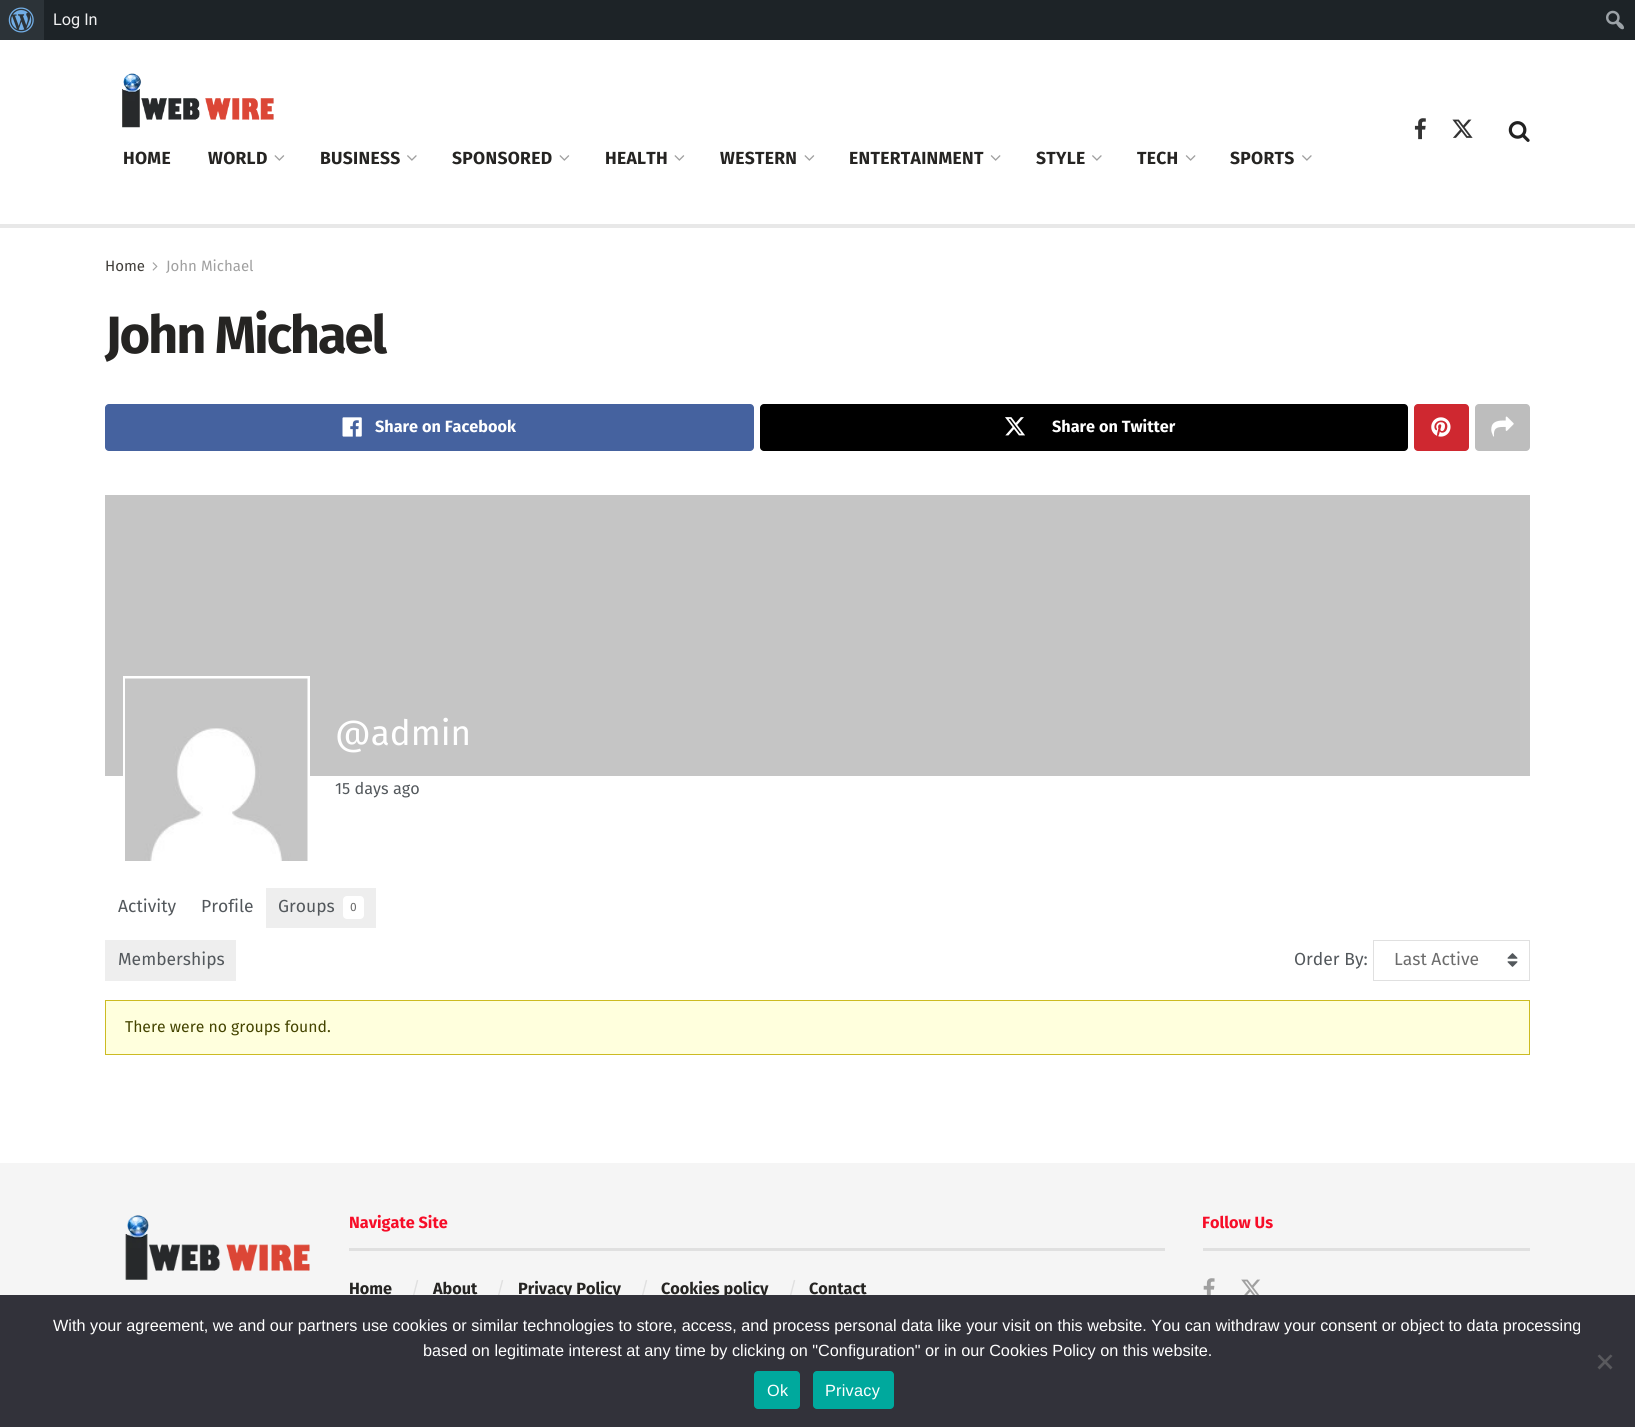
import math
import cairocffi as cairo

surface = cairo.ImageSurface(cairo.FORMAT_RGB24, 1635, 1427)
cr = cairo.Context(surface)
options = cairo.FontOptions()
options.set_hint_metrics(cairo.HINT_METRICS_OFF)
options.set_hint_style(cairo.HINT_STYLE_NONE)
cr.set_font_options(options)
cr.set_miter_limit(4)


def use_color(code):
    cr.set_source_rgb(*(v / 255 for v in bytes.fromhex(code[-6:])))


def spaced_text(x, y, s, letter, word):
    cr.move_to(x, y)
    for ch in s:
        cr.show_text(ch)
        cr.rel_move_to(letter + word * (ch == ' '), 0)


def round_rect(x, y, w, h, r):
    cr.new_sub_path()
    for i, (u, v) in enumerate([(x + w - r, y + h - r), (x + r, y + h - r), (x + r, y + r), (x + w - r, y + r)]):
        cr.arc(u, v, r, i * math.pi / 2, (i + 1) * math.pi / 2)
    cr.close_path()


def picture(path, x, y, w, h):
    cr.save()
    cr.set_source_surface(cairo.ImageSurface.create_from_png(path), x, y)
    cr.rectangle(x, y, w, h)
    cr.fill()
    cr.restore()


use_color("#ffffff")
cr.paint()
use_color("#1d2327")
cr.rectangle(44, 0, 1591, 40)
cr.fill()
use_color("#2c3338")
cr.rectangle(0, 0, 44, 40)
cr.fill()
picture("img1.png", 8, 7, 26, 26)
cr.select_font_face("Roboto")
cr.set_font_size(16.25)
use_color("#f0f0f1")
cr.move_to(53, 25)
cr.show_text("Log In")
picture("img2.png", 1606, 10, 18, 20)
use_color("#e8e8e8")
cr.rectangle(0, 224, 1635, 4)
cr.fill()
picture("img3.png", 1414, 118, 12, 22)
picture("img4.png", 1452, 119, 21, 19)
picture("img5.png", 1508, 121, 22, 21)
picture("img6.png", 122, 73, 152, 55)
cr.select_font_face("Fira Sans", cairo.FONT_SLANT_NORMAL, cairo.FONT_WEIGHT_BOLD)
cr.set_font_size(17.5)
use_color("#252422")
spaced_text(123, 164, "HOME", 0.3, 0)
spaced_text(208, 164, "WORLD", 0.3, 0)
picture("img7.png", 274, 155, 11, 6)
spaced_text(320, 164, "BUSINESS", 0.3, 0)
picture("img8.png", 407, 155, 10, 6)
spaced_text(452, 164, "SPONSORED", 0.3, 0)
picture("img7.png", 559, 155, 11, 6)
spaced_text(605, 164, "HEALTH", 0.3, 0)
picture("img7.png", 674, 155, 11, 6)
spaced_text(720, 164, "WESTERN", 0.3, 0)
picture("img7.png", 804, 155, 11, 6)
spaced_text(849, 164, "ENTERTAINMENT", 0.3, 0)
picture("img9.png", 990, 155, 11, 6)
spaced_text(1036, 164, "STYLE", 0.3, 0)
picture("img8.png", 1092, 155, 10, 6)
spaced_text(1137, 164, "TECH", 0.3, 0)
picture("img9.png", 1185, 155, 11, 6)
spaced_text(1230, 164, "SPORTS", 0.3, 0)
picture("img8.png", 1302, 155, 10, 6)
cr.select_font_face("Fira Sans")
cr.set_font_size(15)
use_color("#403d39")
cr.move_to(105, 271)
cr.show_text("Home")
picture("img10.png", 152, 262, 6, 9)
use_color("#a0a0a0")
cr.move_to(166, 271)
cr.show_text("John Michael")
cr.select_font_face("Fira Sans", cairo.FONT_SLANT_NORMAL, cairo.FONT_WEIGHT_BOLD)
cr.set_font_size(52.5)
use_color("#252422")
spaced_text(105, 353, "John Michael", -2.1, 0)
use_color("#45629f")
round_rect(105, 404, 649, 47, 4)
cr.fill()
picture("img11.png", 342, 417, 20, 20)
cr.set_font_size(16.25)
use_color("#ffffff")
cr.move_to(375, 432)
cr.show_text("Share on Facebook")
use_color("#000000")
round_rect(760, 404, 648, 47, 4)
cr.fill()
picture("img12.png", 1005, 417, 20, 19)
use_color("#ffffff")
cr.move_to(1052, 432)
cr.show_text("Share on Twitter")
use_color("#cf2830")
round_rect(1414, 404, 55, 47, 4)
cr.fill()
picture("img13.png", 1431, 417, 20, 20)
use_color("#bdbdbd")
round_rect(1475, 404, 55, 47, 4)
cr.fill()
picture("img14.png", 1491, 416, 23, 21)
use_color("#c5c5c5")
cr.rectangle(105, 495, 1425, 281)
cr.fill()
cr.rectangle(124.5, 677.5, 184, 185)
use_color("#ffffff")
cr.set_line_width(3)
cr.stroke()
picture("img15.png", 125, 678, 183, 183)
cr.select_font_face("Fira Sans")
cr.set_font_size(35)
cr.move_to(335, 745)
cr.show_text("@admin")
cr.set_font_size(16.25)
use_color("#53585c")
cr.move_to(335, 794)
cr.show_text("15 days ago")
cr.set_font_size(17.5)
cr.move_to(118, 912)
cr.show_text("Activity")
cr.move_to(201, 912)
cr.show_text("Profile")
use_color("#eeeeee")
cr.rectangle(266, 888, 110, 40)
cr.fill()
use_color("#53585c")
cr.move_to(278, 912)
cr.show_text("Groups")
use_color("#ffffff")
round_rect(343, 896, 21, 23, 4)
cr.fill()
cr.set_font_size(12)
use_color("#6c6c6c")
cr.move_to(350, 911)
cr.show_text("0")
use_color("#eeeeee")
cr.rectangle(105, 940, 131, 41)
cr.fill()
cr.set_font_size(17.5)
use_color("#53585c")
cr.move_to(118, 965)
cr.show_text("Memberships")
cr.move_to(1294, 965)
cr.show_text("Order By:")
cr.rectangle(1373.5, 940.5, 156, 40)
use_color("#e0e0e0")
cr.set_line_width(1)
cr.stroke()
use_color("#6c6c6c")
cr.move_to(1394, 965)
cr.show_text("Last Active")
picture("img16.png", 1507, 953, 11, 14)
use_color("#ffffdd")
cr.rectangle(105.5, 1000.5, 1424, 54)
cr.fill_preserve()
use_color("#ccbb22")
cr.stroke()
cr.set_font_size(15.75)
use_color("#444400")
cr.move_to(125, 1032)
cr.show_text("There were no groups found.")
use_color("#f5f5f5")
cr.rectangle(0, 1163, 1635, 132)
cr.fill()
picture("img17.png", 125, 1215, 185, 65)
use_color("#e0e0e0")
cr.rectangle(349, 1248, 816, 3)
cr.fill()
cr.select_font_face("Fira Sans", cairo.FONT_SLANT_NORMAL, cairo.FONT_WEIGHT_BOLD)
cr.set_font_size(16.25)
use_color("#f70d28")
cr.move_to(349, 1228)
cr.show_text("Navigate Site")
use_color("#252422")
cr.move_to(349, 1294)
cr.show_text("Home")
cr.select_font_face("Fira Sans")
cr.set_font_size(17.5)
use_color("#e0e0e0")
cr.move_to(411, 1294)
cr.show_text("/")
cr.select_font_face("Fira Sans", cairo.FONT_SLANT_NORMAL, cairo.FONT_WEIGHT_BOLD)
cr.set_font_size(16.25)
use_color("#252422")
cr.move_to(433, 1294)
cr.show_text("About")
cr.select_font_face("Fira Sans")
cr.set_font_size(17.5)
use_color("#e0e0e0")
cr.move_to(496, 1294)
cr.show_text("/")
cr.select_font_face("Fira Sans", cairo.FONT_SLANT_NORMAL, cairo.FONT_WEIGHT_BOLD)
cr.set_font_size(16.25)
use_color("#252422")
cr.move_to(518, 1294)
cr.show_text("Privacy Policy")
cr.select_font_face("Fira Sans")
cr.set_font_size(17.5)
use_color("#e0e0e0")
cr.move_to(640, 1294)
cr.show_text("/")
cr.select_font_face("Fira Sans", cairo.FONT_SLANT_NORMAL, cairo.FONT_WEIGHT_BOLD)
cr.set_font_size(16.25)
use_color("#252422")
cr.move_to(661, 1294)
cr.show_text("Cookies policy")
cr.select_font_face("Fira Sans")
cr.set_font_size(17.5)
use_color("#e0e0e0")
cr.move_to(788, 1294)
cr.show_text("/")
cr.select_font_face("Fira Sans", cairo.FONT_SLANT_NORMAL, cairo.FONT_WEIGHT_BOLD)
cr.set_font_size(16.25)
use_color("#252422")
cr.move_to(809, 1294)
cr.show_text("Contact")
use_color("#e0e0e0")
cr.rectangle(1203, 1248, 327, 3)
cr.fill()
use_color("#f70d28")
cr.move_to(1202, 1228)
cr.show_text("Follow Us")
picture("img18.png", 1203, 1278, 12, 17)
picture("img19.png", 1241, 1279, 20, 16)
use_color("#32323a")
cr.rectangle(0, 1295, 1635, 132)
cr.fill()
cr.select_font_face("Liberation Sans")
use_color("#ffffff")
cr.move_to(53, 1331)
cr.show_text("With your agreement, we and our partners use cookies or similar technologies to store, access, and process personal data like your visit on this website. You can withdraw your consent or object to data processing")
cr.move_to(423, 1356)
cr.show_text("based on legitimate interest at any time by clicking on \"Configuration\" or in our Cookies Policy on this website.")
use_color("#59595d")
cr.new_path()
cr.move_to(1610.5, 1354.5)
cr.line_to(1612.5, 1356)
cr.line_to(1599.5, 1369.5)
cr.line_to(1597.5, 1367.5)
cr.close_path()
cr.fill()
cr.new_path()
cr.move_to(1597.5, 1356)
cr.line_to(1599.5, 1354.5)
cr.line_to(1612.5, 1367.5)
cr.line_to(1610.5, 1369.5)
cr.close_path()
cr.fill()
use_color("#00a99d")
round_rect(754, 1371, 46, 38, 4)
cr.fill()
use_color("#ffffff")
spaced_text(767, 1396, "Ok", 0.25, 0)
use_color("#00a99d")
round_rect(813, 1371, 81, 38, 4)
cr.fill()
use_color("#ffffff")
spaced_text(825, 1396, "Privacy", 0.25, 0)
surface.write_to_png("result.png")
